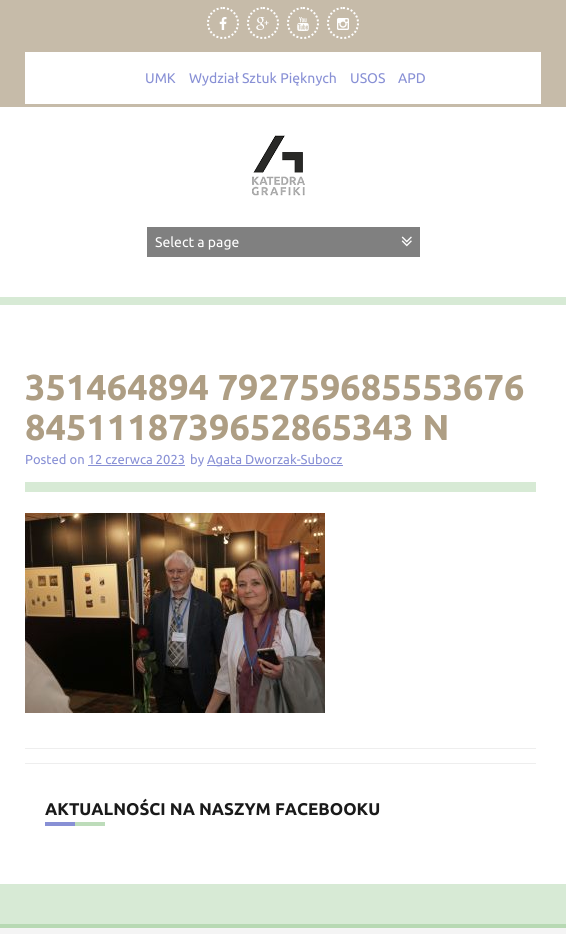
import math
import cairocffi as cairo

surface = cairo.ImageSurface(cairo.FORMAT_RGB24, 566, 934)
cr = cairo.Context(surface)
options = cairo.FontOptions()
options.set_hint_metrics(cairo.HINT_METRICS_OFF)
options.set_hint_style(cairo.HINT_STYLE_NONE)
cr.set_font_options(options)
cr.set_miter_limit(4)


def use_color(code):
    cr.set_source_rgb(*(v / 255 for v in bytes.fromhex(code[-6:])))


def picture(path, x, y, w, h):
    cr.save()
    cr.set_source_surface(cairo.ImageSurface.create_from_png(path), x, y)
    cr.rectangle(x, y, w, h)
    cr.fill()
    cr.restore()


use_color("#ffffff")
cr.paint()
use_color("#c6bba9")
cr.rectangle(0, 0, 566, 107)
cr.fill()
cr.new_path()
cr.move_to(223, 8)
cr.curve_to(231.5, 8, 238, 14.5, 238, 23)
cr.curve_to(238, 31.5, 231.5, 38, 223, 38)
cr.curve_to(214.5, 38, 208, 31.5, 208, 23)
cr.curve_to(208, 14.5, 214.5, 8, 223, 8)
cr.close_path()
use_color("#ffffff")
cr.set_dash([2, 2])
cr.stroke()
picture("img1.png", 219, 17, 8, 13)
cr.new_path()
cr.move_to(263, 8)
cr.curve_to(271.5, 8, 278, 14.5, 278, 23)
cr.curve_to(278, 31.5, 271.5, 38, 263, 38)
cr.curve_to(254.5, 38, 248, 31.5, 248, 23)
cr.curve_to(248, 14.5, 254.5, 8, 263, 8)
cr.close_path()
cr.stroke()
picture("img2.png", 256, 17, 13, 13)
cr.new_path()
cr.move_to(303, 8)
cr.curve_to(311.5, 8, 318, 14.5, 318, 23)
cr.curve_to(318, 31.5, 311.5, 38, 303, 38)
cr.curve_to(294.5, 38, 288, 31.5, 288, 23)
cr.curve_to(288, 14.5, 294.5, 8, 303, 8)
cr.close_path()
cr.stroke()
picture("img3.png", 297, 17, 12, 14)
cr.new_path()
cr.move_to(343, 8)
cr.curve_to(351.5, 8, 358, 14.5, 358, 23)
cr.curve_to(358, 31.5, 351.5, 38, 343, 38)
cr.curve_to(334.5, 38, 328, 31.5, 328, 23)
cr.curve_to(328, 14.5, 334.5, 8, 343, 8)
cr.close_path()
cr.stroke()
picture("img4.png", 337, 18, 12, 12)
cr.rectangle(25, 52, 516, 52)
cr.fill()
cr.select_font_face("Ubuntu")
cr.set_font_size(14)
use_color("#8890d5")
cr.move_to(145, 83)
cr.show_text("UMK")
cr.move_to(189, 83)
cr.show_text("Wydział Sztuk Pięknych")
cr.move_to(350, 83)
cr.show_text("USOS")
cr.move_to(398, 83)
cr.show_text("APD")
use_color("#d7ead5")
cr.rectangle(0, 297, 566, 8)
cr.fill()
picture("img5.png", 252, 135, 53, 61)
use_color("#808080")
cr.rectangle(147, 227, 273, 30)
cr.fill()
use_color("#ffffff")
cr.move_to(155, 247)
cr.show_text("Select a page")
picture("img6.png", 401, 236, 11, 11)
cr.select_font_face("Ubuntu", cairo.FONT_SLANT_NORMAL, cairo.FONT_WEIGHT_BOLD)
cr.set_font_size(36)
use_color("#ae9e84")
cr.move_to(25, 400)
cr.show_text("351464894 792759685553676")
cr.move_to(25, 440)
cr.show_text("8451118739652865343 N")
cr.select_font_face("Ubuntu")
cr.set_font_size(13)
use_color("#8890d5")
cr.move_to(25, 464)
cr.show_text("Posted on 12 czerwca 2023")
cr.rectangle(88, 465, 97, 1)
cr.fill()
cr.move_to(190, 464)
cr.show_text("by")
cr.rectangle(207, 465, 136, 1)
cr.fill()
cr.move_to(207, 464)
cr.show_text("Agata Dworzak-Subocz")
use_color("#d7ead5")
cr.rectangle(25, 482, 511, 10)
cr.fill()
picture("img7.png", 25, 513, 300, 200)
use_color("#eeeeee")
cr.rectangle(25, 748, 511, 1)
cr.fill()
cr.rectangle(25, 763, 511, 1)
cr.fill()
cr.select_font_face("Ubuntu", cairo.FONT_SLANT_NORMAL, cairo.FONT_WEIGHT_BOLD)
cr.set_font_size(17)
use_color("#1a1a1a")
cr.move_to(45, 815)
cr.show_text("AKTUALNOŚCI NA NASZYM FACEBOOKU")
use_color("#8890d5")
cr.rectangle(45, 822, 30, 4)
cr.fill()
use_color("#bddcba")
cr.rectangle(75, 822, 30, 4)
cr.fill()
use_color("#d7ead5")
cr.rectangle(0, 884, 566, 40)
cr.fill()
use_color("#f4f4f4")
cr.rectangle(0, 928, 566, 6)
cr.fill()
use_color("#b7d9b3")
cr.rectangle(0, 924, 566, 4)
cr.fill()
surface.write_to_png("result.png")
